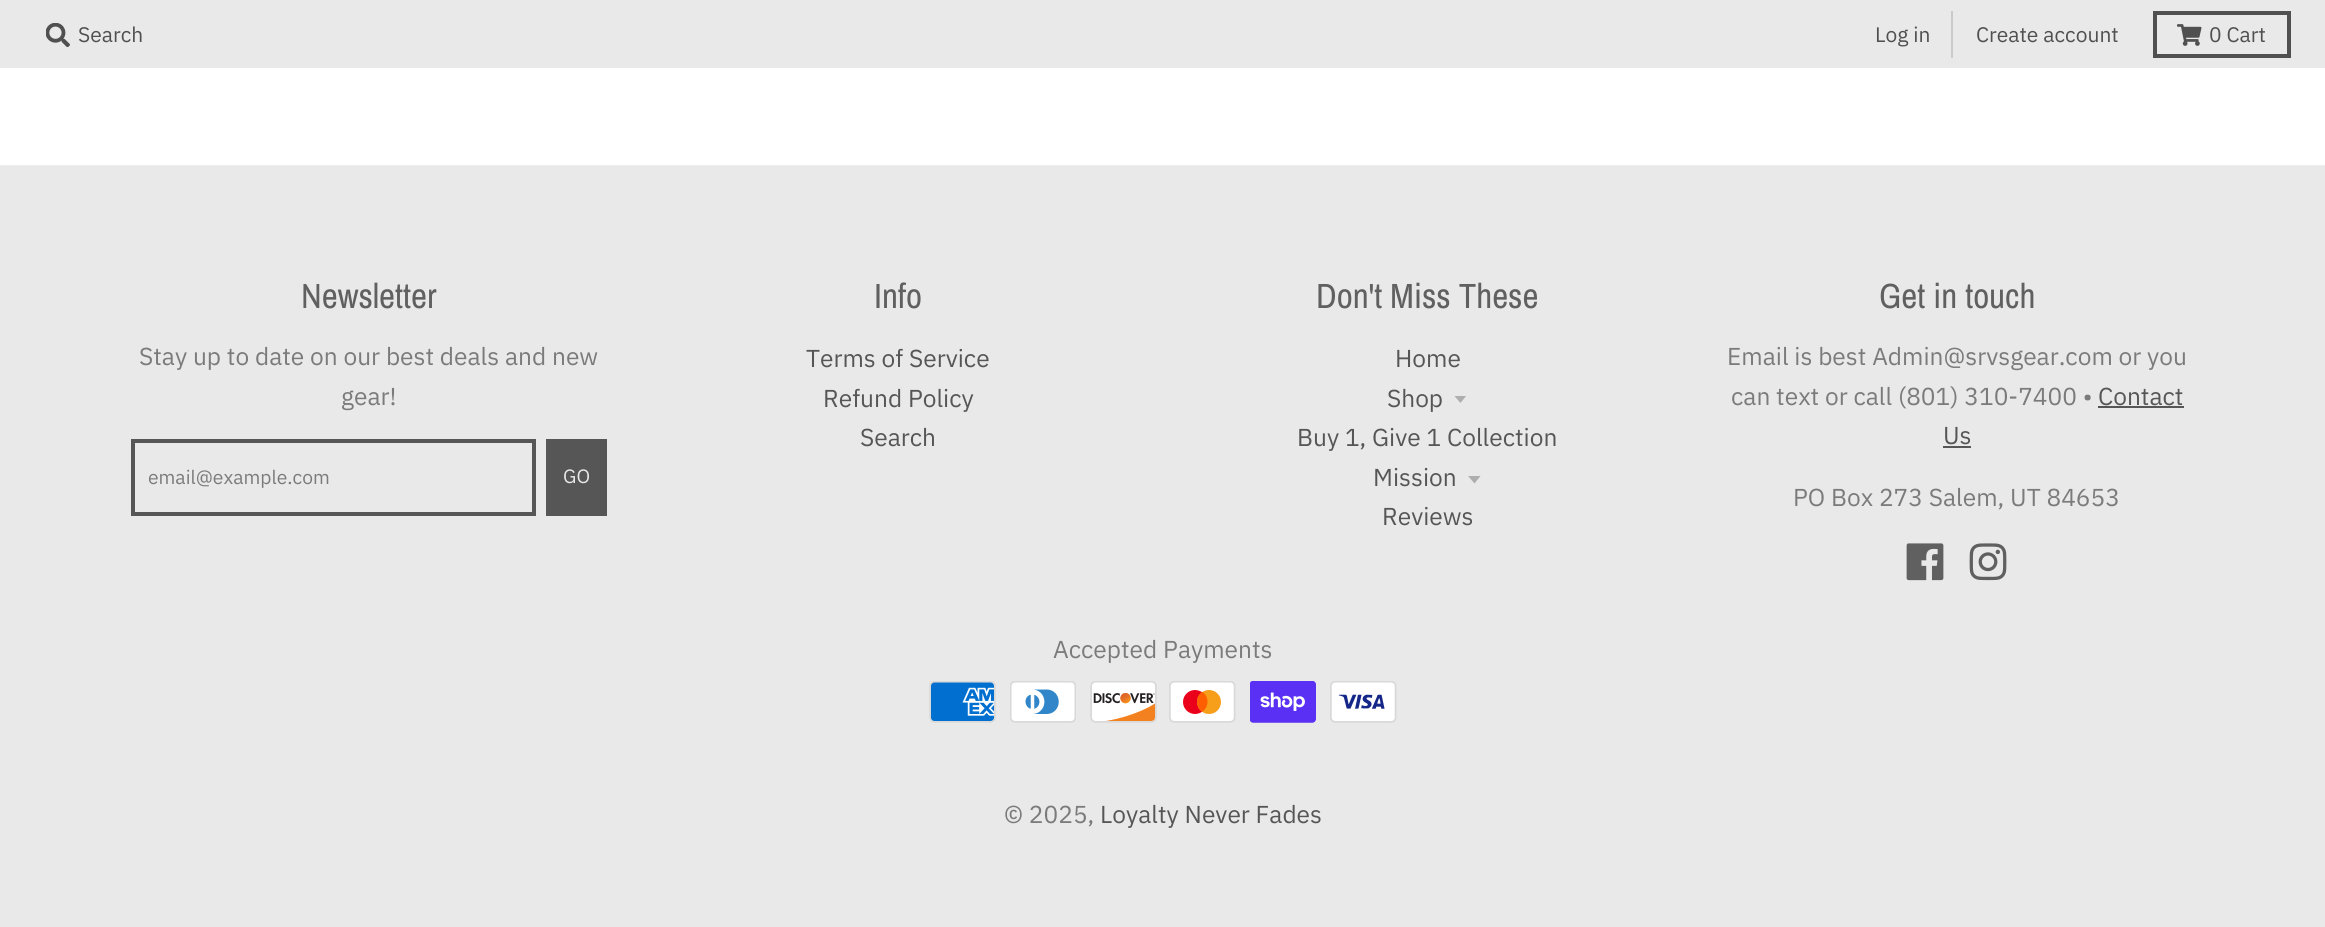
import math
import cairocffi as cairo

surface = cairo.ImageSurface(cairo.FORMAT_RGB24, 2325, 927)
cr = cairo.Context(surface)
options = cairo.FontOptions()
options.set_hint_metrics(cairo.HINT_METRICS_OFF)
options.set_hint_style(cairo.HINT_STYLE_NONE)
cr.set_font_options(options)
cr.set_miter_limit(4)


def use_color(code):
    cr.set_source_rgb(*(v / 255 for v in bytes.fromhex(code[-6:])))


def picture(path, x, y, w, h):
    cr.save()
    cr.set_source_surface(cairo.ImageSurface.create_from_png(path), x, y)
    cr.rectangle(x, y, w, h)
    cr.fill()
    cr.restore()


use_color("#ffffff")
cr.paint()
use_color("#e9e9e9")
cr.rectangle(0, 0, 2325, 68)
cr.fill()
picture("img1.png", 46, 23, 24, 24)
cr.select_font_face("IBM Plex Sans")
cr.set_font_size(21)
use_color("#505050")
cr.move_to(78, 42)
cr.show_text("Search")
use_color("#cacaca")
cr.rectangle(1951, 11, 2, 47)
cr.fill()
use_color("#505050")
cr.move_to(1875, 42)
cr.show_text("Log in")
cr.move_to(1976, 42)
cr.show_text("Create account")
cr.rectangle(2155, 13, 134, 43)
cr.set_line_width(4)
cr.stroke()
picture("img2.png", 2177, 24, 25, 22)
cr.move_to(2209, 42)
cr.show_text("0 Cart")
use_color("#ededed")
cr.rectangle(0, 165, 2325, 1)
cr.fill()
use_color("#e9e9e9")
cr.rectangle(0, 166, 2325, 761)
cr.fill()
cr.select_font_face("Archivo Narrow")
cr.set_font_size(35)
use_color("#606060")
cr.move_to(301, 308)
cr.show_text("Newsletter")
cr.select_font_face("IBM Plex Sans")
cr.set_font_size(24.5)
use_color("#7b7b7b")
cr.move_to(139, 365)
cr.show_text("Stay up to date on our best deals and new")
cr.move_to(341, 405)
cr.show_text("gear!")
cr.rectangle(133, 441, 401, 73)
use_color("#565656")
cr.stroke()
cr.save()
cr.rectangle(149, 466, 369, 24)
cr.clip()
cr.set_font_size(19.25)
use_color("#7b7b7b")
cr.move_to(148, 484)
cr.show_text("email@example.com")
cr.restore()
cr.rectangle(546, 439, 61, 77)
cr.fill()
cr.set_font_size(19.25)
use_color("#e9e9e9")
cr.move_to(563, 483)
cr.show_text("GO")
cr.select_font_face("Archivo Narrow")
cr.set_font_size(35)
use_color("#606060")
cr.move_to(874, 308)
cr.show_text("Info")
cr.select_font_face("IBM Plex Sans")
cr.set_font_size(24.5)
use_color("#565656")
cr.move_to(806, 367)
cr.show_text("Terms of Service")
cr.move_to(823, 407)
cr.show_text("Refund Policy")
cr.move_to(860, 446)
cr.show_text("Search")
cr.select_font_face("Archivo Narrow")
cr.set_font_size(35)
use_color("#606060")
cr.move_to(1316, 308)
cr.show_text("Don't Miss These")
cr.select_font_face("IBM Plex Sans")
cr.set_font_size(24.5)
use_color("#565656")
cr.move_to(1395, 367)
cr.show_text("Home")
cr.move_to(1387, 407)
cr.show_text("Shop")
cr.save()
cr.rectangle(1454, 396, 14, 8)
cr.clip()
use_color("#aeaeae")
cr.new_path()
cr.move_to(1454, 395.5)
cr.line_to(1460.5, 403)
cr.line_to(1466.5, 395.5)
cr.close_path()
cr.fill()
cr.restore()
cr.move_to(1297, 446)
cr.show_text("Buy 1, Give 1 Collection")
cr.move_to(1373, 486)
cr.show_text("Mission")
use_color("#aeaeae")
cr.new_path()
cr.move_to(1468, 476)
cr.line_to(1474.5, 483.5)
cr.line_to(1480.5, 476)
cr.close_path()
cr.fill()
use_color("#565656")
cr.move_to(1382, 525)
cr.show_text("Reviews")
cr.select_font_face("Archivo Narrow")
cr.set_font_size(35)
use_color("#606060")
cr.move_to(1879, 308)
cr.show_text("Get in touch")
cr.select_font_face("IBM Plex Sans")
cr.set_font_size(24.5)
use_color("#7b7b7b")
cr.move_to(1727, 365)
cr.show_text("Email is best Admin@srvsgear.com or you")
cr.move_to(1731, 405)
cr.show_text("can text or call (801) 310-7400 •")
use_color("#565656")
cr.move_to(2098, 405)
cr.show_text("Contact")
cr.rectangle(2098, 406, 86, 2)
cr.fill()
cr.move_to(1943, 444)
cr.show_text("Us")
cr.rectangle(1943, 446, 28, 2)
cr.fill()
use_color("#7b7b7b")
cr.move_to(1793, 506)
cr.show_text("PO Box 273 Salem, UT 84653")
picture("img3.png", 1906, 543, 38, 38)
picture("img4.png", 1969, 543, 38, 38)
cr.move_to(1053, 658)
cr.show_text("Accepted Payments")
picture("img5.png", 929, 681, 67, 42)
picture("img6.png", 1010, 681, 66, 42)
picture("img7.png", 1090, 681, 67, 42)
picture("img8.png", 1169, 681, 67, 42)
picture("img9.png", 1250, 681, 66, 42)
picture("img10.png", 1330, 681, 67, 42)
cr.move_to(1004, 823)
cr.show_text("© 2025,")
use_color("#565656")
cr.move_to(1100, 823)
cr.show_text("Loyalty Never Fades")
surface.write_to_png("result.png")
